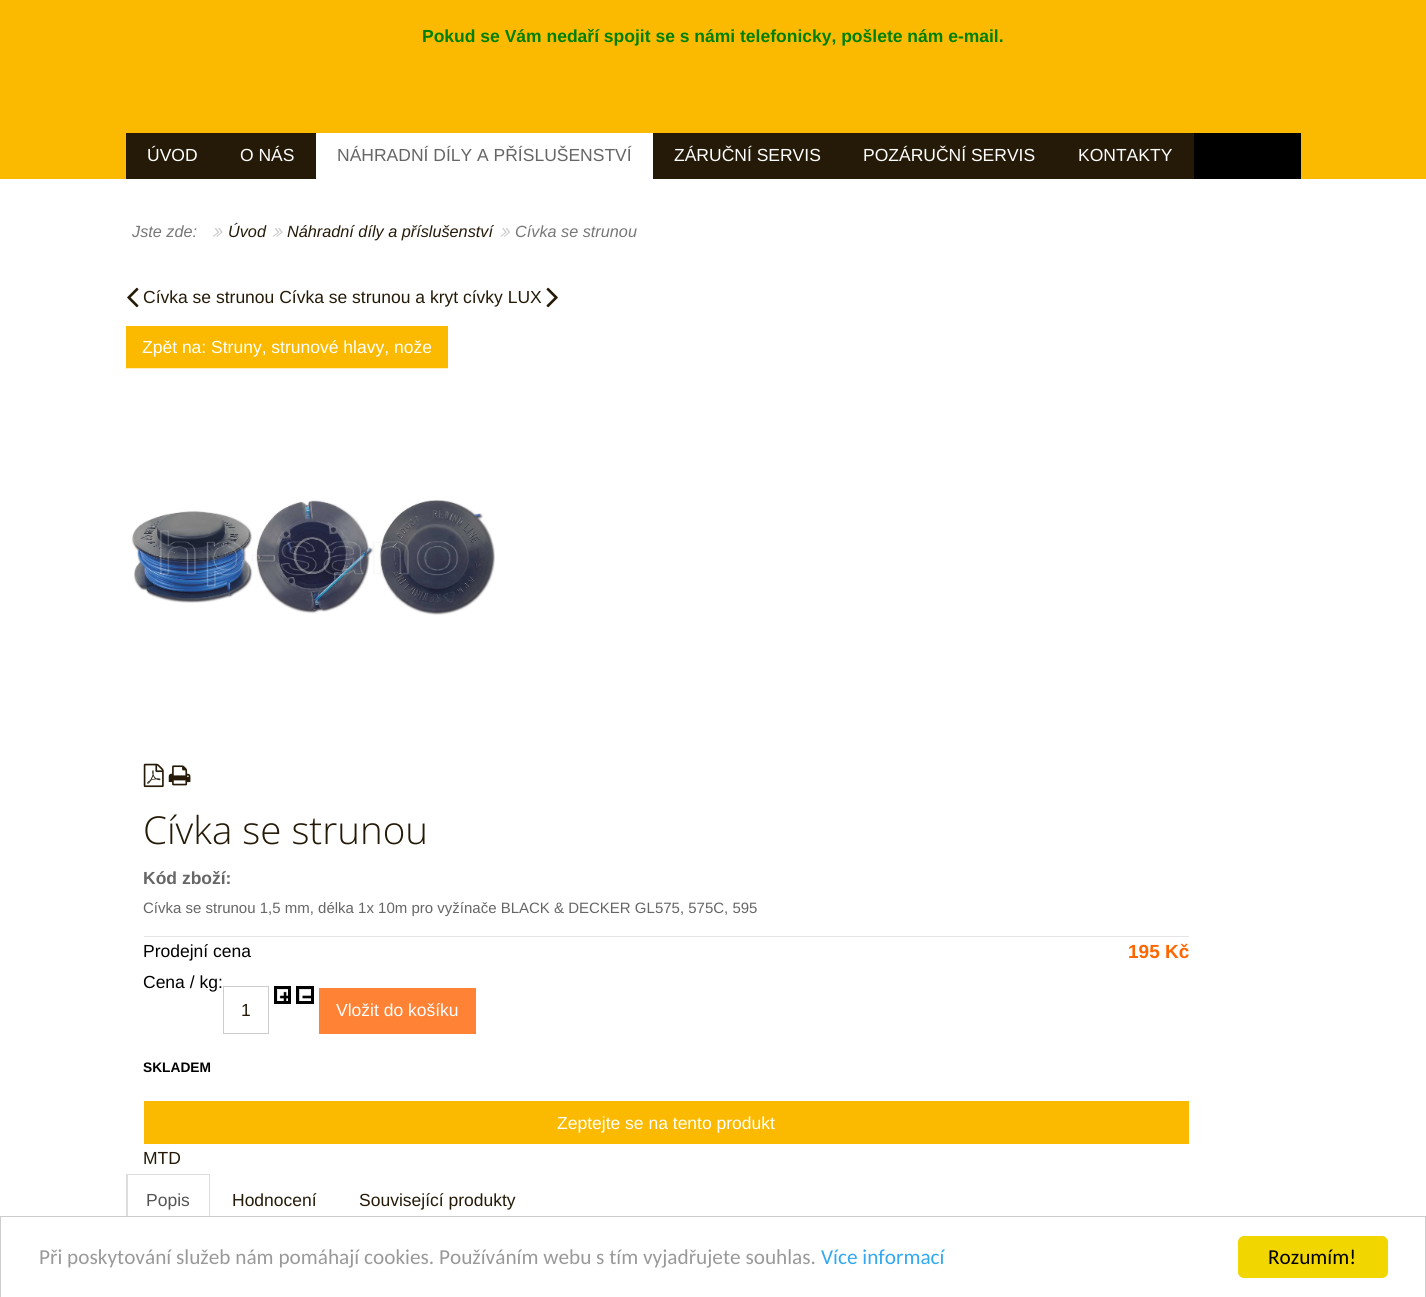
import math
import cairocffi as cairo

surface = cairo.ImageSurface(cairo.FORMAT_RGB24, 1426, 1297)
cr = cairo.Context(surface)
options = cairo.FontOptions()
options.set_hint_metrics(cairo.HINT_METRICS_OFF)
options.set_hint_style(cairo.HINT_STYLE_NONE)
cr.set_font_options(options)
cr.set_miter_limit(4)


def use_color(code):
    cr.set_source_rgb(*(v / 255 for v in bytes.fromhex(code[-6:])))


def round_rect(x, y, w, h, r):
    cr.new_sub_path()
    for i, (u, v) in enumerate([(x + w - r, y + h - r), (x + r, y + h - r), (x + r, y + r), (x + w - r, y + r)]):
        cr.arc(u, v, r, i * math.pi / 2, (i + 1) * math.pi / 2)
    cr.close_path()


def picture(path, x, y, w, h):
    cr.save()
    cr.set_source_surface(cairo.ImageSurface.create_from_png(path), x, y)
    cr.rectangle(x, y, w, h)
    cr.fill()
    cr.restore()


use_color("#ffffff")
cr.paint()
use_color("#fbba00")
cr.rectangle(0, 0, 1426, 179)
cr.fill()
cr.select_font_face("Liberation Sans", cairo.FONT_SLANT_NORMAL, cairo.FONT_WEIGHT_BOLD)
cr.set_font_size(17.5)
use_color("#008000")
cr.move_to(422, 42)
cr.show_text("Pokud se Vám nedaří spojit se s námi telefonicky, pošlete nám e-mail.")
use_color("#000000")
cr.rectangle(1194, 133, 107, 46)
cr.fill()
use_color("#251a08")
cr.rectangle(126, 133, 190, 46)
cr.fill()
cr.select_font_face("Liberation Sans")
use_color("#ffffff")
cr.move_to(147, 161)
cr.show_text("ÚVOD")
cr.move_to(240, 161)
cr.show_text("O NÁS")
cr.rectangle(316, 133, 337, 46)
cr.fill()
use_color("#666666")
cr.move_to(337, 161)
cr.show_text("NÁHRADNÍ DÍLY A PŘÍSLUŠENSTVÍ")
use_color("#251a08")
cr.rectangle(653, 133, 541, 46)
cr.fill()
use_color("#ffffff")
cr.move_to(674, 161)
cr.show_text("ZÁRUČNÍ SERVIS")
cr.move_to(863, 161)
cr.show_text("POZÁRUČNÍ SERVIS")
cr.move_to(1078, 161)
cr.show_text("KONTAKTY")
cr.select_font_face("Liberation Sans", cairo.FONT_SLANT_ITALIC)
cr.set_font_size(16.25)
use_color("#777777")
cr.move_to(132, 237)
cr.show_text("Jste zde:")
picture("img1.png", 213, 227, 10, 10)
use_color("#251a08")
cr.move_to(228, 237)
cr.show_text("Úvod")
picture("img1.png", 273, 227, 10, 10)
cr.move_to(287, 237)
cr.show_text("Náhradní díly a příslušenství")
picture("img2.png", 500, 227, 10, 10)
use_color("#777777")
cr.move_to(515, 237)
cr.show_text("Cívka se strunou")
picture("img3.png", 127, 287, 12, 21)
cr.select_font_face("Liberation Sans")
cr.set_font_size(17.5)
use_color("#251a08")
cr.move_to(143, 303)
cr.show_text("Cívka se strunou Cívka se strunou a kryt cívky LUX")
picture("img4.png", 546, 287, 12, 21)
use_color("#fbba00")
cr.rectangle(126, 326, 322, 43)
cr.fill()
use_color("#ffffff")
cr.move_to(142, 353)
cr.show_text("Zpět na: Struny, strunové hlavy, nože")
picture("img5.png", 126, 368, 369, 247)
picture("img6.png", 143, 763, 21, 25)
picture("img7.png", 168, 765, 23, 21)
cr.select_font_face("Open Sans Light")
cr.set_font_size(38.5)
use_color("#251a08")
cr.move_to(143, 844)
cr.show_text("Cívka se strunou")
cr.select_font_face("Liberation Sans", cairo.FONT_SLANT_NORMAL, cairo.FONT_WEIGHT_BOLD)
cr.set_font_size(17.5)
use_color("#666666")
cr.move_to(143, 884)
cr.show_text("Kód zboží:")
use_color("#e5e5e5")
cr.rectangle(144, 936, 1045, 1)
cr.fill()
cr.select_font_face("Liberation Sans")
cr.set_font_size(15)
use_color("#666666")
cr.move_to(143, 913)
cr.show_text("Cívka se strunou 1,5 mm, délka 1x 10m pro vyžínače BLACK & DECKER GL575, 575C, 595")
cr.set_font_size(17.5)
use_color("#000000")
cr.move_to(143, 957)
cr.show_text("Prodejní cena")
cr.select_font_face("Liberation Sans", cairo.FONT_SLANT_NORMAL, cairo.FONT_WEIGHT_BOLD)
cr.set_font_size(19)
use_color("#ff6600")
cr.move_to(1128, 958)
cr.show_text("195 Kč")
cr.select_font_face("Liberation Sans")
cr.set_font_size(17.5)
use_color("#000000")
cr.move_to(143, 988)
cr.show_text("Cena / kg:")
picture("img8.png", 277, 988, 15, 16)
cr.rectangle(275.5, 987.5, 14, 15)
cr.set_line_width(3)
cr.stroke()
picture("img9.png", 299, 989, 12, 12)
cr.rectangle(297.5, 987.5, 15, 15)
cr.stroke()
cr.rectangle(223.5, 986.5, 45, 47)
use_color("#cccccc")
cr.set_line_width(1)
cr.stroke()
use_color("#251a08")
cr.move_to(241, 1016)
cr.show_text("1")
use_color("#ff8235")
cr.rectangle(319, 988, 157, 46)
cr.fill()
use_color("#ffffff")
cr.move_to(336, 1016)
cr.show_text("Vložit do košíku")
cr.select_font_face("Liberation Sans", cairo.FONT_SLANT_NORMAL, cairo.FONT_WEIGHT_BOLD)
cr.set_font_size(13.75)
use_color("#000000")
cr.move_to(143, 1072)
cr.show_text("SKLADEM")
use_color("#fbba00")
cr.rectangle(144, 1101, 1045, 43)
cr.fill()
cr.select_font_face("Liberation Sans")
cr.set_font_size(17.5)
use_color("#ffffff")
cr.move_to(557, 1129)
cr.show_text("Zeptejte se na tento produkt")
use_color("#251a08")
cr.move_to(143, 1164)
cr.show_text("MTD")
use_color("#dddddd")
cr.rectangle(126, 1174, 84, 1)
cr.fill()
cr.new_path()
cr.move_to(210, 1174)
cr.line_to(210, 1226)
cr.line_to(209, 1225)
cr.line_to(209, 1175)
cr.close_path()
cr.fill()
cr.new_path()
cr.move_to(126, 1226)
cr.line_to(126, 1174)
cr.line_to(128, 1175)
cr.line_to(128, 1225)
cr.close_path()
cr.fill()
use_color("#555555")
cr.move_to(146, 1206)
cr.show_text("Popis")
use_color("#251a08")
cr.move_to(232, 1206)
cr.show_text("Hodnocení")
cr.move_to(359, 1206)
cr.show_text("Související produkty")
use_color("#ffffff")
cr.rectangle(126, 1217, 84, 9)
cr.fill()
cr.rectangle(0.5, 1216.5, 1425, 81)
use_color("#cccccc")
cr.stroke()
cr.select_font_face("Carlito")
cr.set_font_size(21.25)
use_color("#999999")
cr.move_to(39, 1264)
cr.show_text("Při poskytování služeb nám pomáhají cookies. Používáním webu s tím vyjadřujete souhlas.")
use_color("#31a8f0")
cr.move_to(821, 1264)
cr.show_text("Více informací")
use_color("#f1d600")
round_rect(1238, 1236, 150, 42, 6)
cr.fill()
use_color("#000000")
cr.move_to(1268, 1264)
cr.show_text("Rozumím!")
surface.write_to_png("result.png")
